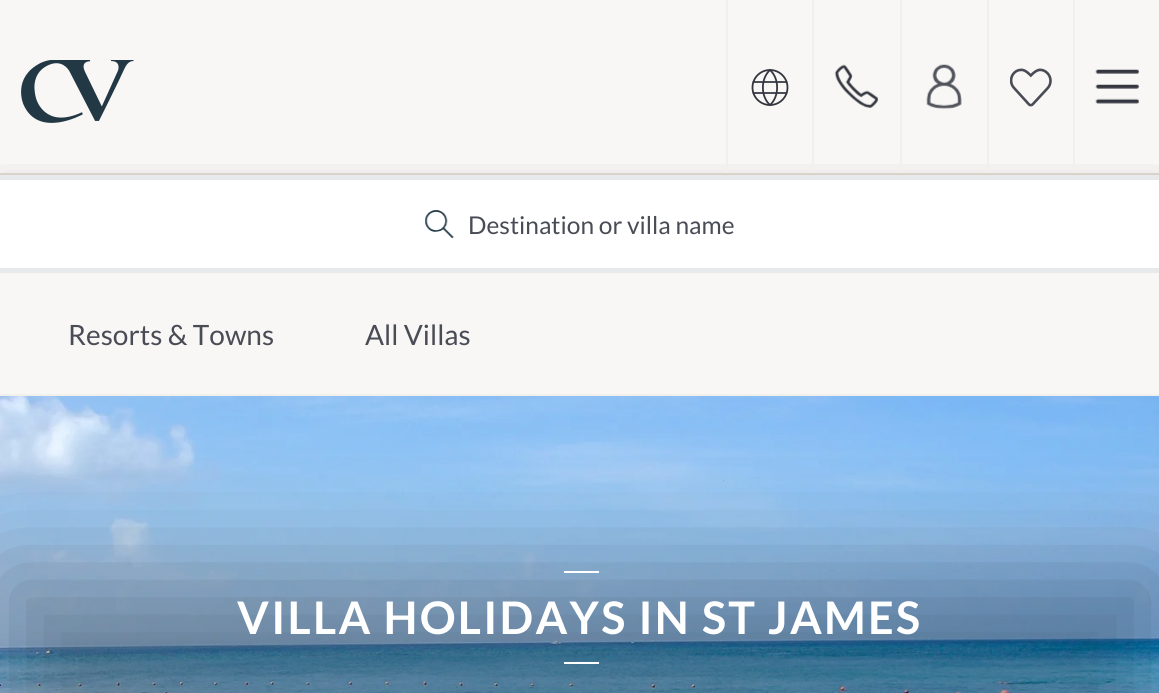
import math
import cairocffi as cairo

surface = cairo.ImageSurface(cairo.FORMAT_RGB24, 1159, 693)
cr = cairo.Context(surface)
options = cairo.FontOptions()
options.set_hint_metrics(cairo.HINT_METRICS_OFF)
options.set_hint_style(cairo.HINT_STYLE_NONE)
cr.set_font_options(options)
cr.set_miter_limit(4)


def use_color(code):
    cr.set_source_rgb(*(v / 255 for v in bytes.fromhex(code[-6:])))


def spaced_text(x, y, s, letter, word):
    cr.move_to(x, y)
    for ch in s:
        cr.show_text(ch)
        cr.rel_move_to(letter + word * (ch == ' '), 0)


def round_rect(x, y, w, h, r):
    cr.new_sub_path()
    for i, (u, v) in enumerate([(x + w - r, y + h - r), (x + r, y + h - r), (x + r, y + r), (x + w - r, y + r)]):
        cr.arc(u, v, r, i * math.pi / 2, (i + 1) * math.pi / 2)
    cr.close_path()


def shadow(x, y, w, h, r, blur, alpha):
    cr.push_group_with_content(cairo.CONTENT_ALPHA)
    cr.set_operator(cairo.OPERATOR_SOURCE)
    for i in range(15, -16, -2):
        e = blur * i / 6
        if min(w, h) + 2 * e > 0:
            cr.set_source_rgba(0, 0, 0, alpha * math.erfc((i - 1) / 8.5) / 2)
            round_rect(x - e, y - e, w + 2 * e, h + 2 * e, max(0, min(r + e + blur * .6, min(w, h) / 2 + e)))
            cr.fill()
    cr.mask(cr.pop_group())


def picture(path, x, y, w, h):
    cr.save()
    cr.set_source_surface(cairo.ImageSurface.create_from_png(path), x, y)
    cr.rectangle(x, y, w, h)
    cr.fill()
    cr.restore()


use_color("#ffffff")
cr.paint()
use_color("#f1f0eb")
cr.rectangle(0, 394, 1159, 2)
cr.fill()
use_color("#f8f7f5")
cr.rectangle(0, 0, 1159, 173)
cr.fill()
use_color("#dfdbd1")
cr.rectangle(0, 173, 1159, 2)
cr.fill()
picture("img1.png", 21, 60, 113, 63)
cr.save()
cr.rectangle(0, 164, 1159, 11)
cr.clip()
use_color("#000000")
shadow(0, 179, 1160, 98, 0, 17.5, 0.1)
cr.restore()
use_color("#f1f0eb")
cr.rectangle(726, 0, 2, 173)
cr.fill()
cr.arc(770, 87.5, 17.5, 0, 2 * math.pi)
use_color("#33353f")
cr.set_line_width(1.8)
cr.stroke()
cr.new_path()
cr.move_to(770, 105)
cr.curve_to(779.5, 96.5, 779.5, 78.5, 770, 70)
cr.curve_to(760.5, 78.5, 760.5, 96.5, 770, 105)
cr.close_path()
cr.move_to(753.5, 82)
cr.line_to(786.5, 82)
cr.move_to(753.5, 93)
cr.line_to(786.5, 93)
cr.set_line_cap(cairo.LINE_CAP_ROUND)
cr.stroke()
use_color("#f1f0eb")
cr.rectangle(812, 0, 2, 173)
cr.fill()
picture("img2.png", 834, 64, 45, 44)
cr.rectangle(900, 0, 2, 173)
cr.fill()
picture("img3.png", 926, 64, 36, 45)
cr.rectangle(987, 0, 2, 173)
cr.fill()
picture("img4.png", 1010, 68, 42, 39)
cr.rectangle(1073, 0, 2, 173)
cr.fill()
picture("img5.png", 1095, 69, 44, 35)
use_color("#e8e9ea")
cr.rectangle(0, 175, 1159, 5)
cr.fill()
cr.rectangle(0, 268, 1159, 5)
cr.fill()
picture("img6.png", 425, 210, 29, 28)
cr.select_font_face("Lato")
cr.set_font_size(24.5)
use_color("#494c55")
cr.move_to(468, 234)
cr.show_text("Destination or villa name")
use_color("#f8f7f5")
cr.rectangle(0, 273, 1159, 121)
cr.fill()
cr.set_font_size(28)
use_color("#494c55")
cr.move_to(68, 345)
cr.show_text("Resorts & Towns")
cr.move_to(365, 345)
cr.show_text("All Villas")
picture("img7.png", 0, 396, 1159, 297)
use_color("#000000")
shadow(0, 571, 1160, 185, 0, 52.5, 0.3)
use_color("#ffffff")
cr.rectangle(564, 571, 35, 2)
cr.fill()
cr.rectangle(564, 662, 35, 2)
cr.fill()
cr.select_font_face("Lato", cairo.FONT_SLANT_NORMAL, cairo.FONT_WEIGHT_BOLD)
cr.set_font_size(44.9)
spaced_text(237, 634, "VILLA HOLIDAYS IN ST JAMES", 2.25, 0)
surface.write_to_png("result.png")
